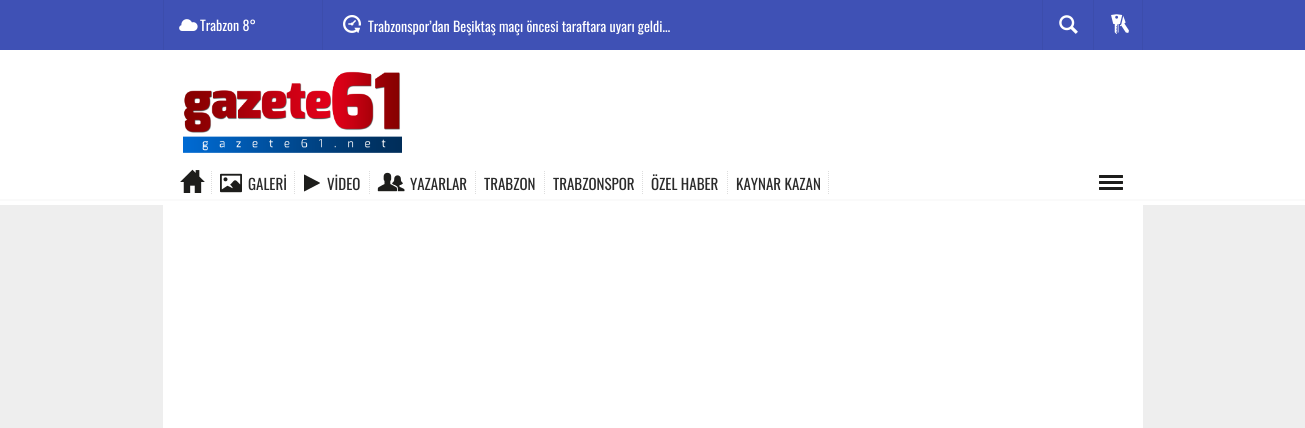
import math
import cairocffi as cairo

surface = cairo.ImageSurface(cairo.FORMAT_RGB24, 1305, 428)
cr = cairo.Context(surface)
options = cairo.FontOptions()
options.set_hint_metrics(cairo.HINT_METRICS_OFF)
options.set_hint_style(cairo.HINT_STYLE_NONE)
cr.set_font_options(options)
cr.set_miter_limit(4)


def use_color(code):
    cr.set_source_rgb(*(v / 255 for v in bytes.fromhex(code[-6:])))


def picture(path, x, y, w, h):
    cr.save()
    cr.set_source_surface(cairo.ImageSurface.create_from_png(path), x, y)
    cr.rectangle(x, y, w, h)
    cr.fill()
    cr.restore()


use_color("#eeeeee")
cr.paint()
use_color("#ffffff")
cr.rectangle(0, 50, 1305, 155)
cr.fill()
use_color("#3f51b5")
cr.rectangle(0, 0, 1305, 50)
cr.fill()
use_color("#3c4dac")
cr.rectangle(163, 0, 1, 50)
cr.fill()
picture("img1.png", 179, 19, 19, 12)
cr.select_font_face("Oswald")
cr.set_font_size(14)
use_color("#ffffff")
cr.move_to(200, 31)
cr.show_text("Trabzon 8°")
use_color("#3c4dac")
cr.rectangle(322, 0, 1, 50)
cr.fill()
picture("img2.png", 343, 15, 18, 18)
use_color("#ffffff")
cr.move_to(368, 32)
cr.show_text("Trabzonspor’dan Beşiktaş maçı öncesi taraftara uyarı geldi…")
use_color("#3c4dac")
cr.rectangle(1042, 0, 1, 50)
cr.fill()
picture("img3.png", 1059, 15, 19, 19)
cr.rectangle(1142, 0, 1, 50)
cr.fill()
cr.rectangle(1093, 0, 1, 50)
cr.fill()
picture("img4.png", 1111, 14, 18, 20)
picture("img5.png", 183, 71, 219, 82)
use_color("#fafafa")
cr.rectangle(0, 199, 1305, 2)
cr.fill()
cr.new_path()
cr.move_to(211.5, 171)
cr.line_to(211.5, 195)
use_color("#dddddd")
cr.set_line_width(1)
cr.set_dash([1, 1])
cr.stroke()
picture("img6.png", 180, 169, 25, 24)
cr.new_path()
cr.move_to(294.5, 171)
cr.line_to(294.5, 195)
cr.stroke()
picture("img7.png", 220, 173, 22, 20)
cr.set_font_size(15)
use_color("#2a2a2a")
cr.move_to(248, 190)
cr.show_text("GALERİ")
cr.new_path()
cr.move_to(369.5, 171)
cr.line_to(369.5, 195)
use_color("#dddddd")
cr.stroke()
picture("img8.png", 304, 174, 16, 18)
use_color("#2a2a2a")
cr.move_to(327, 190)
cr.show_text("VİDEO")
cr.new_path()
cr.move_to(475.5, 171)
cr.line_to(475.5, 195)
use_color("#dddddd")
cr.stroke()
picture("img9.png", 377, 172, 28, 20)
use_color("#2a2a2a")
cr.move_to(410, 190)
cr.show_text("YAZARLAR")
cr.new_path()
cr.move_to(544.5, 171)
cr.line_to(544.5, 195)
use_color("#dddddd")
cr.stroke()
use_color("#2a2a2a")
cr.move_to(484, 190)
cr.show_text("TRABZON")
cr.new_path()
cr.move_to(642.5, 171)
cr.line_to(642.5, 195)
use_color("#dddddd")
cr.stroke()
use_color("#2a2a2a")
cr.move_to(553, 190)
cr.show_text("TRABZONSPOR")
cr.new_path()
cr.move_to(727.5, 171)
cr.line_to(727.5, 195)
use_color("#dddddd")
cr.stroke()
use_color("#2a2a2a")
cr.move_to(651, 190)
cr.show_text("ÖZEL HABER")
cr.new_path()
cr.move_to(828.5, 171)
cr.line_to(828.5, 195)
use_color("#dddddd")
cr.stroke()
use_color("#2a2a2a")
cr.move_to(736, 190)
cr.show_text("KAYNAR KAZAN")
picture("img10.png", 1099, 175, 24, 15)
use_color("#ffffff")
cr.rectangle(163, 205, 980, 223)
cr.fill()
surface.write_to_png("result.png")
